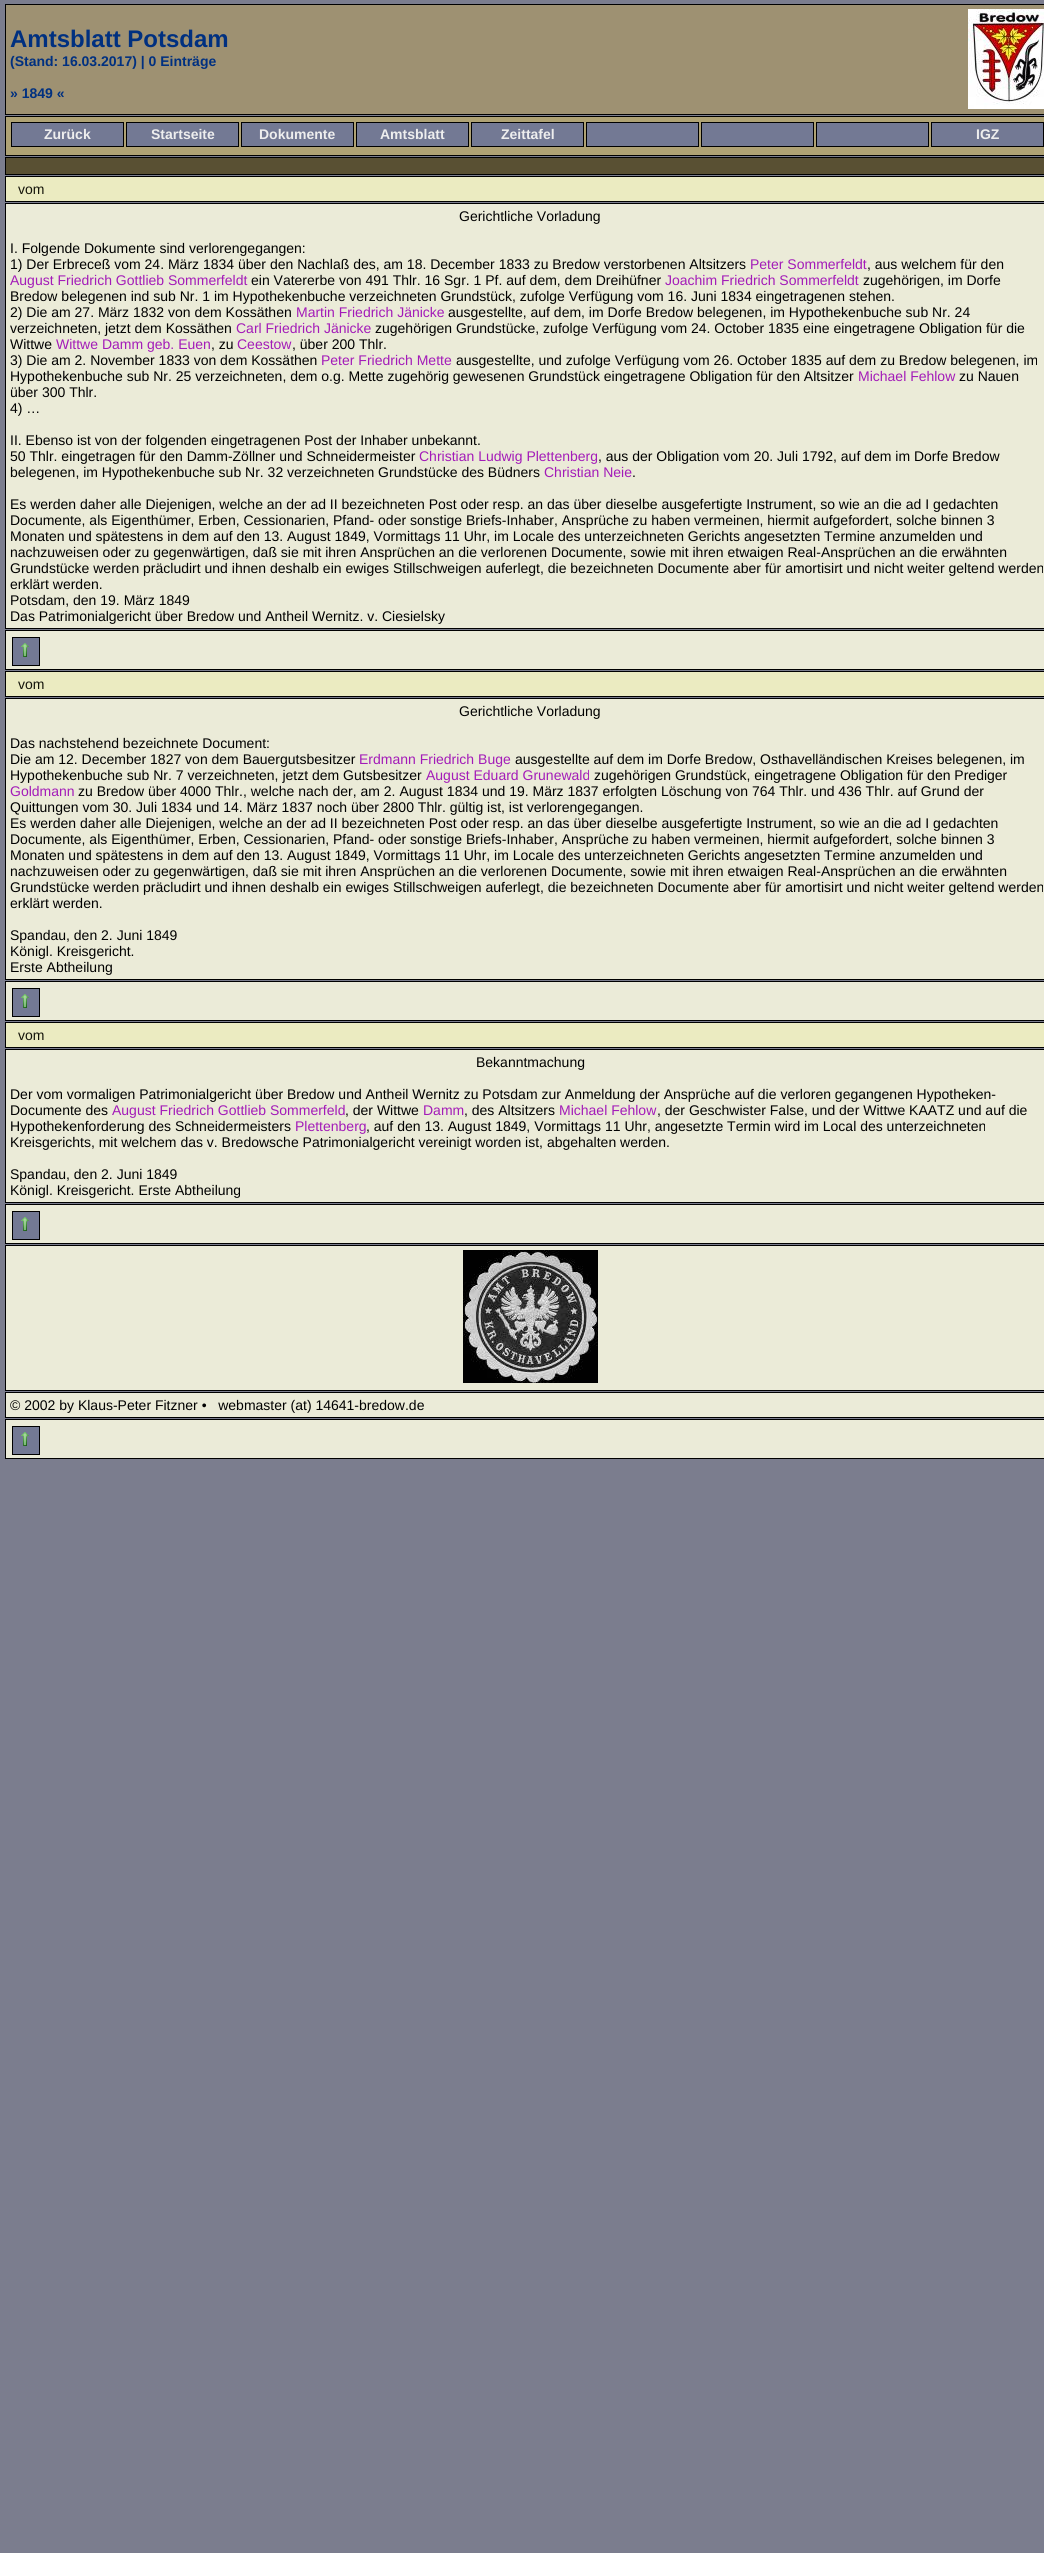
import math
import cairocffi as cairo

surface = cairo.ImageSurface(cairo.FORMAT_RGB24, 1044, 2553)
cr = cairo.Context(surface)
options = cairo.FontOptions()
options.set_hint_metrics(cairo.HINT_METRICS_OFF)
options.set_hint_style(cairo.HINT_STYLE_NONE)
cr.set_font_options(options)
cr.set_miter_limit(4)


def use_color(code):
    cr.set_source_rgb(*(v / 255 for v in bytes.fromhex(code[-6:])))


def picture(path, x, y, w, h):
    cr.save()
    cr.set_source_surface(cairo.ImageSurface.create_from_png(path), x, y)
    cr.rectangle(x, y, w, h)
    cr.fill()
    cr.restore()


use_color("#7b7d8e")
cr.paint()
use_color("#9e9172")
cr.rectangle(5.5, 4.5, 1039, 110)
cr.fill_preserve()
use_color("#000000")
cr.set_line_width(1)
cr.stroke()
cr.select_font_face("Liberation Sans", cairo.FONT_SLANT_NORMAL, cairo.FONT_WEIGHT_BOLD)
cr.set_font_size(24)
use_color("#003080")
cr.move_to(10, 47)
cr.show_text("Amtsblatt Potsdam")
picture("img1.png", 968, 9, 76, 100)
cr.set_font_size(14)
cr.move_to(10, 66)
cr.show_text("(Stand: 16.03.2017) | 0 Einträge")
cr.move_to(10, 98)
cr.show_text("» 1849 «")
use_color("#afa274")
cr.rectangle(5.5, 116.5, 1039, 39)
cr.fill_preserve()
use_color("#000000")
cr.stroke()
use_color("#737994")
cr.rectangle(11.5, 122.5, 112, 24)
cr.fill_preserve()
use_color("#000000")
cr.stroke()
use_color("#eeeeee")
cr.move_to(44, 139)
cr.show_text("Zurück")
use_color("#737994")
cr.rectangle(126.5, 122.5, 112, 24)
cr.fill_preserve()
use_color("#000000")
cr.stroke()
use_color("#eeeeee")
cr.move_to(151, 139)
cr.show_text("Startseite")
use_color("#737994")
cr.rectangle(241.5, 122.5, 112, 24)
cr.fill_preserve()
use_color("#000000")
cr.stroke()
use_color("#eeeeee")
cr.move_to(259, 139)
cr.show_text("Dokumente")
use_color("#737994")
cr.rectangle(356.5, 122.5, 112, 24)
cr.fill_preserve()
use_color("#000000")
cr.stroke()
use_color("#eeeeee")
cr.move_to(380, 139)
cr.show_text("Amtsblatt")
use_color("#737994")
cr.rectangle(471.5, 122.5, 112, 24)
cr.fill_preserve()
use_color("#000000")
cr.stroke()
use_color("#eeeeee")
cr.move_to(501, 139)
cr.show_text("Zeittafel")
use_color("#737994")
cr.rectangle(586.5, 122.5, 112, 24)
cr.fill_preserve()
use_color("#000000")
cr.stroke()
use_color("#737994")
cr.rectangle(701.5, 122.5, 112, 24)
cr.fill_preserve()
use_color("#000000")
cr.stroke()
use_color("#737994")
cr.rectangle(816.5, 122.5, 112, 24)
cr.fill_preserve()
use_color("#000000")
cr.stroke()
use_color("#737994")
cr.rectangle(931.5, 122.5, 112, 24)
cr.fill_preserve()
use_color("#000000")
cr.stroke()
use_color("#eeeeee")
cr.move_to(976, 139)
cr.show_text("IGZ")
use_color("#595033")
cr.rectangle(5.5, 157.5, 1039, 17)
cr.fill_preserve()
use_color("#000000")
cr.stroke()
use_color("#ebebc1")
cr.rectangle(5.5, 176.5, 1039, 25)
cr.fill_preserve()
use_color("#000000")
cr.stroke()
cr.select_font_face("Liberation Sans")
use_color("#15150b")
cr.move_to(18, 194)
cr.show_text("vom")
use_color("#ebebd8")
cr.rectangle(5.5, 203.5, 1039, 425)
cr.fill_preserve()
use_color("#000000")
cr.stroke()
cr.move_to(459, 221)
cr.show_text("Gerichtliche Vorladung")
cr.move_to(10, 253)
cr.show_text("I. Folgende Dokumente sind verlorengegangen:")
cr.move_to(10, 269)
cr.show_text("1) Der Erbreceß vom 24. März 1834 über den Nachlaß des, am 18. December 1833 zu Bredow verstorbenen Altsitzers")
use_color("#a31bb8")
cr.move_to(750, 269)
cr.show_text("Peter Sommerfeldt")
use_color("#000000")
cr.move_to(867, 269)
cr.show_text(", aus welchem für den")
use_color("#a31bb8")
cr.move_to(10, 285)
cr.show_text("August Friedrich Gottlieb Sommerfeldt")
use_color("#000000")
cr.move_to(251, 285)
cr.show_text("ein Vatererbe von 491 Thlr. 16 Sgr. 1 Pf. auf dem, dem Dreihüfner")
use_color("#a31bb8")
cr.move_to(665, 285)
cr.show_text("Joachim Friedrich Sommerfeldt")
use_color("#000000")
cr.move_to(863, 285)
cr.show_text("zugehörigen, im Dorfe")
cr.move_to(10, 301)
cr.show_text("Bredow belegenen ind sub Nr. 1 im Hypothekenbuche verzeichneten Grundstück, zufolge Verfügung vom 16. Juni 1834 eingetragenen stehen.")
cr.move_to(10, 317)
cr.show_text("2) Die am 27. März 1832 von dem Kossäthen")
use_color("#a31bb8")
cr.move_to(296, 317)
cr.show_text("Martin Friedrich Jänicke")
use_color("#000000")
cr.move_to(448, 317)
cr.show_text("ausgestellte, auf dem, im Dorfe Bredow belegenen, im Hypothekenbuche sub Nr. 24")
cr.move_to(10, 333)
cr.show_text("verzeichneten, jetzt dem Kossäthen")
use_color("#a31bb8")
cr.move_to(236, 333)
cr.show_text("Carl Friedrich Jänicke")
use_color("#000000")
cr.move_to(375, 333)
cr.show_text("zugehörigen Grundstücke, zufolge Verfügung vom 24. October 1835 eine eingetragene Obligation für die")
cr.move_to(10, 349)
cr.show_text("Wittwe")
use_color("#a31bb8")
cr.move_to(56, 349)
cr.show_text("Wittwe Damm geb. Euen")
use_color("#000000")
cr.move_to(211, 349)
cr.show_text(", zu")
use_color("#a31bb8")
cr.move_to(237, 349)
cr.show_text("Ceestow")
use_color("#000000")
cr.move_to(292, 349)
cr.show_text(", über 200 Thlr.")
cr.move_to(10, 365)
cr.show_text("3) Die am 2. November 1833 von dem Kossäthen")
use_color("#a31bb8")
cr.move_to(321, 365)
cr.show_text("Peter Friedrich Mette")
use_color("#000000")
cr.move_to(456, 365)
cr.show_text("ausgestellte, und zufolge Verfügung vom 26. October 1835 auf dem zu Bredow belegenen, im")
cr.move_to(10, 381)
cr.show_text("Hypothekenbuche sub Nr. 25 verzeichneten, dem o.g. Mette zugehörig gewesenen Grundstück eingetragene Obligation für den Altsitzer")
use_color("#a31bb8")
cr.move_to(858, 381)
cr.show_text("Michael Fehlow")
use_color("#000000")
cr.move_to(959, 381)
cr.show_text("zu Nauen")
cr.move_to(10, 397)
cr.show_text("über 300 Thlr.")
cr.move_to(10, 413)
cr.show_text("4) …")
cr.move_to(10, 445)
cr.show_text("II. Ebenso ist von der folgenden eingetragenen Post der Inhaber unbekannt.")
cr.move_to(10, 461)
cr.show_text("50 Thlr. eingetragen für den Damm-Zöllner und Schneidermeister")
use_color("#a31bb8")
cr.move_to(419, 461)
cr.show_text("Christian Ludwig Plettenberg")
use_color("#000000")
cr.move_to(598, 461)
cr.show_text(", aus der Obligation vom 20. Juli 1792, auf dem im Dorfe Bredow")
cr.move_to(10, 477)
cr.show_text("belegenen, im Hypothekenbuche sub Nr. 32 verzeichneten Grundstücke des Büdners")
use_color("#a31bb8")
cr.move_to(544, 477)
cr.show_text("Christian Neie")
use_color("#000000")
cr.move_to(632, 477)
cr.show_text(".")
cr.move_to(10, 509)
cr.show_text("Es werden daher alle Diejenigen, welche an der ad II bezeichneten Post oder resp. an das über dieselbe ausgefertigte Instrument, so wie an die ad I gedachten")
cr.move_to(10, 525)
cr.show_text("Documente, als Eigenthümer, Erben, Cessionarien, Pfand- oder sonstige Briefs-Inhaber, Ansprüche zu haben vermeinen, hiermit aufgefordert, solche binnen 3")
cr.move_to(10, 541)
cr.show_text("Monaten und spätestens in dem auf den 13. August 1849, Vormittags 11 Uhr, im Locale des unterzeichneten Gerichts angesetzten Termine anzumelden und")
cr.move_to(10, 557)
cr.show_text("nachzuweisen oder zu gegenwärtigen, daß sie mit ihren Ansprüchen an die verlorenen Documente, sowie mit ihren etwaigen Real-Ansprüchen an die erwähnten")
cr.move_to(10, 573)
cr.show_text("Grundstücke werden präcludirt und ihnen deshalb ein ewiges Stillschweigen auferlegt, die bezeichneten Documente aber für amortisirt und nicht weiter geltend werden")
cr.move_to(10, 589)
cr.show_text("erklärt werden.")
cr.move_to(10, 605)
cr.show_text("Potsdam, den 19. März 1849")
cr.move_to(10, 621)
cr.show_text("Das Patrimonialgericht über Bredow und Antheil Wernitz. v. Ciesielsky")
use_color("#ebebd8")
cr.rectangle(5.5, 630.5, 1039, 39)
cr.fill_preserve()
use_color("#000000")
cr.stroke()
use_color("#737994")
cr.rectangle(12.5, 637.5, 27, 28)
cr.fill_preserve()
use_color("#000000")
cr.stroke()
picture("img2.png", 21, 643, 8, 14)
use_color("#ebebc1")
cr.rectangle(5.5, 671.5, 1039, 25)
cr.fill_preserve()
use_color("#000000")
cr.stroke()
use_color("#15150b")
cr.move_to(18, 689)
cr.show_text("vom")
use_color("#ebebd8")
cr.rectangle(5.5, 698.5, 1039, 281)
cr.fill_preserve()
use_color("#000000")
cr.stroke()
cr.move_to(459, 716)
cr.show_text("Gerichtliche Vorladung")
cr.move_to(10, 748)
cr.show_text("Das nachstehend bezeichnete Document:")
cr.move_to(10, 764)
cr.show_text("Die am 12. December 1827 von dem Bauergutsbesitzer")
use_color("#a31bb8")
cr.move_to(359, 764)
cr.show_text("Erdmann Friedrich Buge")
use_color("#000000")
cr.move_to(515, 764)
cr.show_text("ausgestellte auf dem im Dorfe Bredow, Osthavelländischen Kreises belegenen, im")
cr.move_to(10, 780)
cr.show_text("Hypothekenbuche sub Nr. 7 verzeichneten, jetzt dem Gutsbesitzer")
use_color("#a31bb8")
cr.move_to(426, 780)
cr.show_text("August Eduard Grunewald")
use_color("#000000")
cr.move_to(594, 780)
cr.show_text("zugehörigen Grundstück, eingetragene Obligation für den Prediger")
use_color("#a31bb8")
cr.move_to(10, 796)
cr.show_text("Goldmann")
use_color("#000000")
cr.move_to(78, 796)
cr.show_text("zu Bredow über 4000 Thlr., welche nach der, am 2. August 1834 und 19. März 1837 erfolgten Löschung von 764 Thlr. und 436 Thlr. auf Grund der")
cr.move_to(10, 812)
cr.show_text("Quittungen vom 30. Juli 1834 und 14. März 1837 noch über 2800 Thlr. gültig ist, ist verlorengegangen.")
cr.move_to(10, 828)
cr.show_text("Es werden daher alle Diejenigen, welche an der ad II bezeichneten Post oder resp. an das über dieselbe ausgefertigte Instrument, so wie an die ad I gedachten")
cr.move_to(10, 844)
cr.show_text("Documente, als Eigenthümer, Erben, Cessionarien, Pfand- oder sonstige Briefs-Inhaber, Ansprüche zu haben vermeinen, hiermit aufgefordert, solche binnen 3")
cr.move_to(10, 860)
cr.show_text("Monaten und spätestens in dem auf den 13. August 1849, Vormittags 11 Uhr, im Locale des unterzeichneten Gerichts angesetzten Termine anzumelden und")
cr.move_to(10, 876)
cr.show_text("nachzuweisen oder zu gegenwärtigen, daß sie mit ihren Ansprüchen an die verlorenen Documente, sowie mit ihren etwaigen Real-Ansprüchen an die erwähnten")
cr.move_to(10, 892)
cr.show_text("Grundstücke werden präcludirt und ihnen deshalb ein ewiges Stillschweigen auferlegt, die bezeichneten Documente aber für amortisirt und nicht weiter geltend werden")
cr.move_to(10, 908)
cr.show_text("erklärt werden.")
cr.move_to(10, 940)
cr.show_text("Spandau, den 2. Juni 1849")
cr.move_to(10, 956)
cr.show_text("Königl. Kreisgericht.")
cr.move_to(10, 972)
cr.show_text("Erste Abtheilung")
use_color("#ebebd8")
cr.rectangle(5.5, 981.5, 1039, 39)
cr.fill_preserve()
use_color("#000000")
cr.stroke()
use_color("#737994")
cr.rectangle(12.5, 988.5, 27, 28)
cr.fill_preserve()
use_color("#000000")
cr.stroke()
picture("img2.png", 21, 994, 8, 14)
use_color("#ebebc1")
cr.rectangle(5.5, 1022.5, 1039, 25)
cr.fill_preserve()
use_color("#000000")
cr.stroke()
use_color("#15150b")
cr.move_to(18, 1040)
cr.show_text("vom")
use_color("#ebebd8")
cr.rectangle(5.5, 1049.5, 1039, 153)
cr.fill_preserve()
use_color("#000000")
cr.stroke()
cr.move_to(476, 1067)
cr.show_text("Bekanntmachung")
cr.move_to(10, 1099)
cr.show_text("Der vom vormaligen Patrimonialgericht über Bredow und Antheil Wernitz zu Potsdam zur Anmeldung der Ansprüche auf die verloren gegangenen Hypotheken-")
cr.move_to(10, 1115)
cr.show_text("Documente des")
use_color("#a31bb8")
cr.move_to(112, 1115)
cr.show_text("August Friedrich Gottlieb Sommerfeld")
use_color("#000000")
cr.move_to(345, 1115)
cr.show_text(", der Wittwe")
use_color("#a31bb8")
cr.move_to(423, 1115)
cr.show_text("Damm")
use_color("#000000")
cr.move_to(464, 1115)
cr.show_text(", des Altsitzers")
use_color("#a31bb8")
cr.move_to(559, 1115)
cr.show_text("Michael Fehlow")
use_color("#000000")
cr.move_to(657, 1115)
cr.show_text(", der Geschwister False, und der Wittwe KAATZ und auf die")
cr.move_to(10, 1131)
cr.show_text("Hypothekenforderung des Schneidermeisters")
use_color("#a31bb8")
cr.move_to(295, 1131)
cr.show_text("Plettenberg")
use_color("#000000")
cr.move_to(366, 1131)
cr.show_text(", auf den 13. August 1849, Vormittags 11 Uhr, angesetzte Termin wird im Local des unterzeichneten")
cr.move_to(10, 1147)
cr.show_text("Kreisgerichts, mit welchem das v. Bredowsche Patrimonialgericht vereinigt worden ist, abgehalten werden.")
cr.move_to(10, 1179)
cr.show_text("Spandau, den 2. Juni 1849")
cr.move_to(10, 1195)
cr.show_text("Königl. Kreisgericht. Erste Abtheilung")
use_color("#ebebd8")
cr.rectangle(5.5, 1204.5, 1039, 39)
cr.fill_preserve()
use_color("#000000")
cr.stroke()
use_color("#737994")
cr.rectangle(12.5, 1211.5, 27, 28)
cr.fill_preserve()
use_color("#000000")
cr.stroke()
picture("img2.png", 21, 1217, 8, 14)
use_color("#ebebd8")
cr.rectangle(5.5, 1245.5, 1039, 145)
cr.fill_preserve()
use_color("#000000")
cr.stroke()
picture("img3.png", 463, 1250, 135, 133)
use_color("#ebebd8")
cr.rectangle(5.5, 1392.5, 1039, 25)
cr.fill_preserve()
use_color("#000000")
cr.stroke()
cr.move_to(10, 1410)
cr.show_text("© 2002 by Klaus-Peter Fitzner •   webmaster (at) 14641-bredow.de")
use_color("#ebebd8")
cr.rectangle(5.5, 1419.5, 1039, 39)
cr.fill_preserve()
use_color("#000000")
cr.stroke()
use_color("#737994")
cr.rectangle(12.5, 1426.5, 27, 28)
cr.fill_preserve()
use_color("#000000")
cr.stroke()
picture("img2.png", 21, 1432, 8, 14)
surface.write_to_png("result.png")
